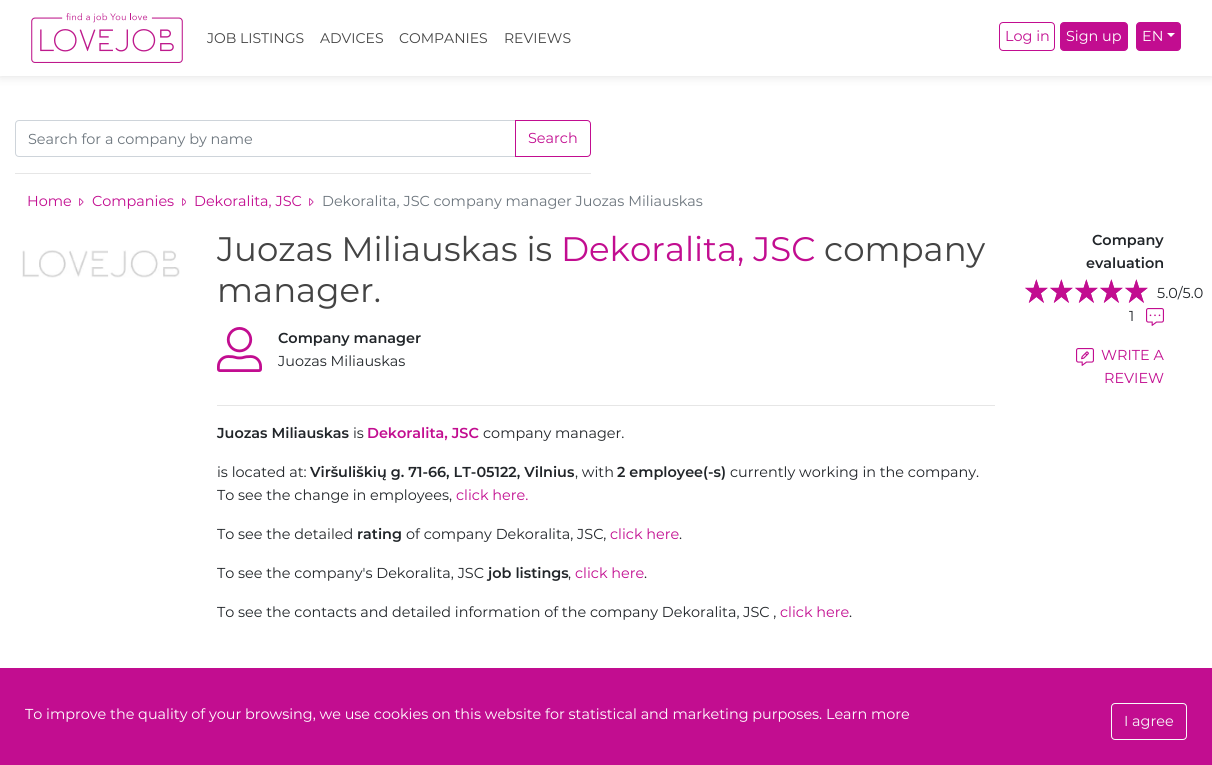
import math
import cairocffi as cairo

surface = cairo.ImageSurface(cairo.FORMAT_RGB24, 1212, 765)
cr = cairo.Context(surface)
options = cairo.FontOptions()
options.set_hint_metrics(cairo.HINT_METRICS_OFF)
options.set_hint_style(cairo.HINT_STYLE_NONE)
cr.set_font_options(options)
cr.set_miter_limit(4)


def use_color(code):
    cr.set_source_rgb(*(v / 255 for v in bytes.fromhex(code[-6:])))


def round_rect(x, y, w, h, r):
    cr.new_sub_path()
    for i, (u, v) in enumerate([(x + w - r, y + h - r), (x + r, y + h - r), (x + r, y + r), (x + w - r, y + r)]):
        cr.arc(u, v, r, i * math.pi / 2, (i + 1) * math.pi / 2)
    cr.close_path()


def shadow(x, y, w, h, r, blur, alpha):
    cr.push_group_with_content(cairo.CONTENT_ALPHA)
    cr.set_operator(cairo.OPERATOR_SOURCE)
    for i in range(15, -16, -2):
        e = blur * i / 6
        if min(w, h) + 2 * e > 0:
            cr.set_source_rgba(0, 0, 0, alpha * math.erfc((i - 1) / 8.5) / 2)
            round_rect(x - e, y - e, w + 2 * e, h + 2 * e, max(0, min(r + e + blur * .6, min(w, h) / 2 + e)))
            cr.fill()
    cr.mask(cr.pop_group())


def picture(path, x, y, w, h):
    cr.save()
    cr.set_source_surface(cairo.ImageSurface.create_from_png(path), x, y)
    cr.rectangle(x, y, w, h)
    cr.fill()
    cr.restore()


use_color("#ffffff")
cr.paint()
cr.save()
cr.rectangle(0, 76, 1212, 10)
cr.clip()
use_color("#dedede")
shadow(0, 0, 1212, 76, 0, 5, 1)
cr.restore()
picture("img1.png", 31, 13, 152, 50)
cr.select_font_face("Montserrat")
cr.set_font_size(14)
use_color("#444444")
cr.move_to(207, 43)
cr.show_text("JOB LISTINGS")
cr.move_to(320, 43)
cr.show_text("ADVICES")
cr.move_to(399, 43)
cr.show_text("COMPANIES")
cr.move_to(504, 43)
cr.show_text("REVIEWS")
round_rect(999.5, 22.5, 55, 28, 3.5)
use_color("#c20d90")
cr.set_line_width(1)
cr.stroke()
cr.set_font_size(14.4)
cr.move_to(1005, 41)
cr.show_text("Log in")
round_rect(1060.5, 22.5, 67, 28, 3.5)
cr.fill_preserve()
cr.stroke()
use_color("#ffffff")
cr.move_to(1066, 41)
cr.show_text("Sign up")
use_color("#c20d90")
round_rect(1136.5, 22.5, 44, 28, 3.5)
cr.fill_preserve()
cr.stroke()
use_color("#ffffff")
cr.move_to(1142, 41)
cr.show_text("EN")
cr.new_path()
cr.move_to(1167, 33)
cr.line_to(1175, 33)
cr.line_to(1171, 37)
cr.close_path()
cr.fill()
cr.new_path()
cr.move_to(19, 120.5)
cr.line_to(515.5, 120.5)
cr.line_to(515.5, 156.5)
cr.line_to(19, 156.5)
cr.curve_to(17, 156.5, 15.5, 155, 15.5, 153)
cr.line_to(15.5, 124)
cr.curve_to(15.5, 122, 17, 120.5, 19, 120.5)
cr.close_path()
use_color("#ced4da")
cr.stroke()
use_color("#6c757d")
cr.move_to(28, 144)
cr.show_text("Search for a company by name")
cr.new_path()
cr.move_to(515.5, 120.5)
cr.line_to(587, 120.5)
cr.curve_to(589, 120.5, 590.5, 122, 590.5, 124)
cr.line_to(590.5, 153)
cr.curve_to(590.5, 155, 589, 156.5, 587, 156.5)
cr.line_to(515.5, 156.5)
cr.close_path()
use_color("#c20d90")
cr.stroke()
cr.move_to(528, 143)
cr.show_text("Search")
use_color("#e6e6e6")
cr.rectangle(15, 173, 576, 1)
cr.fill()
use_color("#c20d90")
cr.move_to(27, 206)
cr.show_text("Home")
picture("img2.png", 79, 198, 5, 8)
cr.move_to(92, 206)
cr.show_text("Companies")
picture("img3.png", 182, 198, 4, 8)
cr.move_to(194, 206)
cr.show_text("Dekoralita, JSC")
picture("img2.png", 309, 198, 5, 8)
use_color("#6c757d")
cr.move_to(322, 206)
cr.show_text("Dekoralita, JSC company manager Juozas Miliauskas")
picture("img4.png", 22, 250, 158, 28)
cr.set_font_size(34)
use_color("#444444")
cr.move_to(217, 261)
cr.show_text("Juozas Miliauskas is")
use_color("#c20d90")
cr.move_to(561, 261)
cr.show_text("Dekoralita, JSC")
use_color("#444444")
cr.move_to(824, 261)
cr.show_text("company")
cr.move_to(217, 302)
cr.show_text("manager.")
picture("img5.png", 217, 327, 45, 45)
cr.select_font_face("Montserrat SemiBold")
cr.set_font_size(14.4)
use_color("#212529")
cr.move_to(278, 343)
cr.show_text("Company manager")
cr.select_font_face("Montserrat")
cr.move_to(278, 366)
cr.show_text("Juozas Miliauskas")
use_color("#e6e6e6")
cr.rectangle(217, 405, 778, 1)
cr.fill()
cr.select_font_face("Montserrat SemiBold")
use_color("#212529")
cr.move_to(217, 438)
cr.show_text("Juozas Miliauskas")
cr.select_font_face("Montserrat")
cr.move_to(353, 438)
cr.show_text("is")
cr.select_font_face("Montserrat SemiBold")
use_color("#c20d90")
cr.move_to(367, 438)
cr.show_text("Dekoralita, JSC")
cr.select_font_face("Montserrat")
use_color("#212529")
cr.move_to(483, 438)
cr.show_text("company manager.")
cr.move_to(217, 477)
cr.show_text("is located at:")
cr.select_font_face("Montserrat SemiBold")
cr.move_to(310, 477)
cr.show_text("Viršuliškių g. 71-66, LT-05122, Vilnius")
cr.select_font_face("Montserrat")
cr.move_to(575, 477)
cr.show_text(", with")
cr.select_font_face("Montserrat SemiBold")
cr.move_to(617, 477)
cr.show_text("2 employee(-s)")
cr.select_font_face("Montserrat")
cr.move_to(730, 477)
cr.show_text("currently working in the company.")
cr.move_to(217, 500)
cr.show_text("To see the change in employees,")
use_color("#c20d90")
cr.move_to(456, 500)
cr.show_text("click here.")
use_color("#212529")
cr.move_to(217, 539)
cr.show_text("To see the detailed")
cr.select_font_face("Montserrat SemiBold")
cr.move_to(357, 539)
cr.show_text("rating")
cr.select_font_face("Montserrat")
cr.move_to(406, 539)
cr.show_text("of company Dekoralita, JSC,")
use_color("#c20d90")
cr.move_to(610, 539)
cr.show_text("click here")
use_color("#212529")
cr.move_to(679, 539)
cr.show_text(".")
cr.move_to(217, 578)
cr.show_text("To see the company's Dekoralita, JSC")
cr.select_font_face("Montserrat SemiBold")
cr.move_to(488, 578)
cr.show_text("job listings")
cr.select_font_face("Montserrat")
cr.move_to(568, 578)
cr.show_text(",")
use_color("#c20d90")
cr.move_to(575, 578)
cr.show_text("click here")
use_color("#212529")
cr.move_to(644, 578)
cr.show_text(".")
cr.move_to(217, 617)
cr.show_text("To see the contacts and detailed information of the company Dekoralita, JSC ,")
use_color("#c20d90")
cr.move_to(780, 617)
cr.show_text("click here")
use_color("#212529")
cr.move_to(849, 617)
cr.show_text(".")
cr.select_font_face("Montserrat SemiBold")
cr.move_to(1092, 245)
cr.show_text("Company")
cr.move_to(1086, 268)
cr.show_text("evaluation")
picture("img6.png", 1025, 279, 23, 24)
picture("img6.png", 1050, 279, 23, 24)
picture("img6.png", 1075, 279, 23, 24)
picture("img6.png", 1100, 279, 23, 24)
picture("img6.png", 1125, 279, 23, 24)
cr.select_font_face("Montserrat")
cr.move_to(1157, 298)
cr.show_text("5.0/5.0")
cr.move_to(1129, 321)
cr.show_text("1")
picture("img7.png", 1146, 308, 18, 18)
picture("img8.png", 1076, 348, 18, 18)
use_color("#c20d90")
cr.move_to(1101, 360)
cr.show_text("WRITE A")
cr.move_to(1104, 383)
cr.show_text("REVIEW")
cr.rectangle(0, 668, 1212, 97)
cr.fill()
use_color("#ffffff")
cr.move_to(25, 719)
cr.show_text("To improve the quality of your browsing, we use cookies on this website for statistical and marketing purposes. Learn more")
round_rect(1111.5, 703.5, 75, 36, 3.5)
use_color("#f8f9fa")
cr.stroke()
cr.move_to(1124, 726)
cr.show_text("I agree")
surface.write_to_png("result.png")
